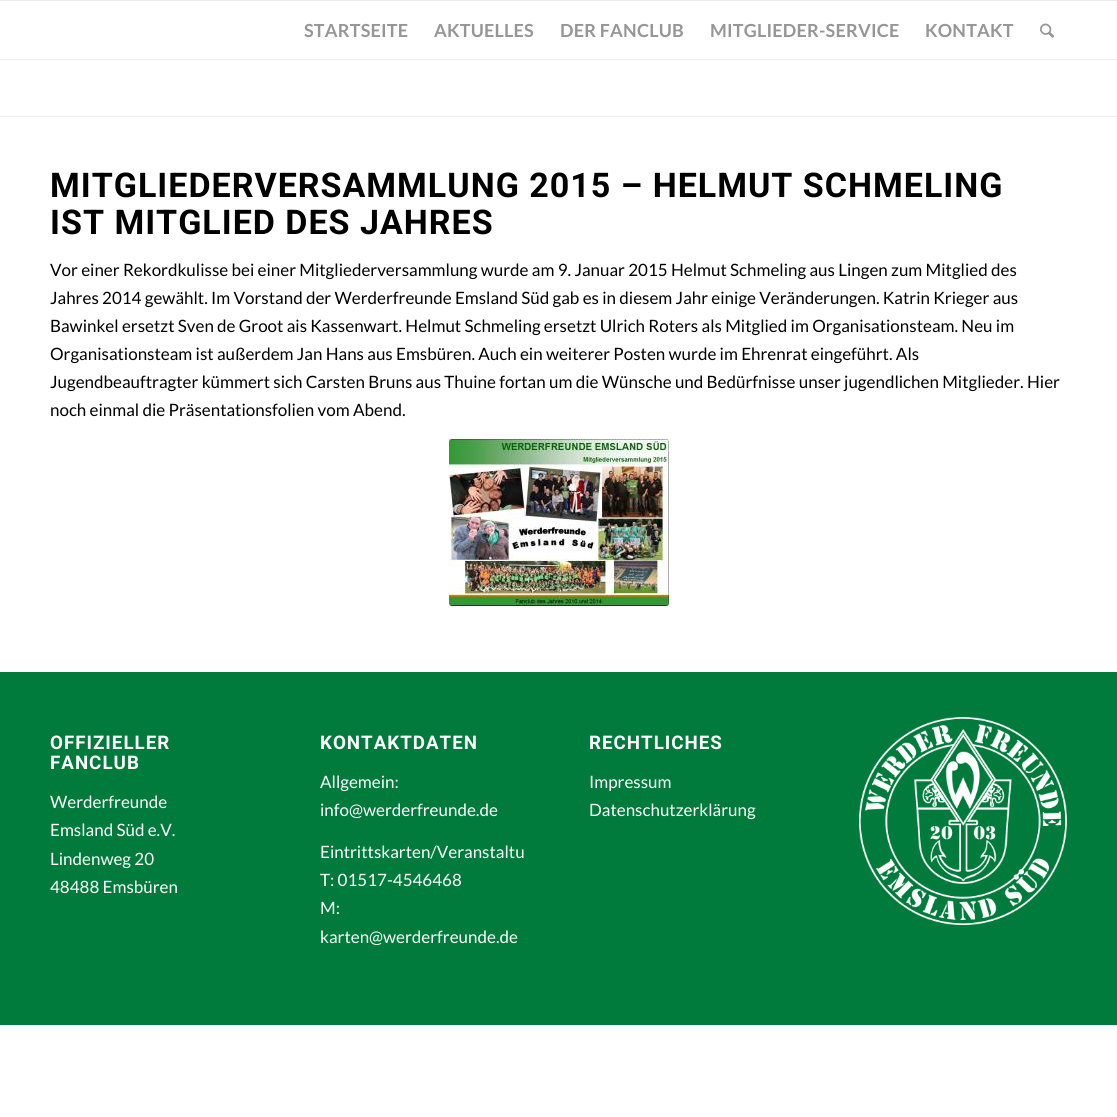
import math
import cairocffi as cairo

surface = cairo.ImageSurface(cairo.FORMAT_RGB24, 1117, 1117)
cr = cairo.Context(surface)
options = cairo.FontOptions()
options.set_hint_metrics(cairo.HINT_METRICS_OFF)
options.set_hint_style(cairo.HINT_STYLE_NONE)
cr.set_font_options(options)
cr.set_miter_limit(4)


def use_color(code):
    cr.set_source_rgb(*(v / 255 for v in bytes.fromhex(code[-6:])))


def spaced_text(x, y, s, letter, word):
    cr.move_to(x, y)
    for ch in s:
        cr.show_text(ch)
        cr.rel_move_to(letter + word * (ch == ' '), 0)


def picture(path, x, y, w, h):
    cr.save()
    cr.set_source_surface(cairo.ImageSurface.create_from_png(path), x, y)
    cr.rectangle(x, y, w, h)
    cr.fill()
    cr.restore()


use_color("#ffffff")
cr.paint()
use_color("#ebebeb")
cr.rectangle(0, 0, 1117, 1)
cr.fill()
cr.rectangle(0, 59, 1117, 1)
cr.fill()
cr.select_font_face("Lato", cairo.FONT_SLANT_NORMAL, cairo.FONT_WEIGHT_BOLD)
cr.set_font_size(18)
use_color("#969696")
spaced_text(304, 37, "STARTSEITE", 0.2, 0)
spaced_text(434, 37, "AKTUELLES", 0.2, 0)
spaced_text(560, 37, "DER FANCLUB", 0.2, 0)
spaced_text(710, 37, "MITGLIEDER-SERVICE", 0.2, 0)
spaced_text(925, 37, "KONTAKT", 0.2, 0)
picture("img1.png", 1040, 23, 15, 15)
use_color("#ebebeb")
cr.rectangle(0, 116, 1117, 1)
cr.fill()
cr.select_font_face("Roboto", cairo.FONT_SLANT_NORMAL, cairo.FONT_WEIGHT_BOLD)
cr.set_font_size(34)
use_color("#000000")
spaced_text(50, 197, "MITGLIEDERVERSAMMLUNG 2015 – HELMUT SCHMELING", 1, 0)
spaced_text(50, 234, "IST MITGLIED DES JAHRES", 1, 0)
cr.select_font_face("Lato")
cr.set_font_size(17)
cr.move_to(50, 276)
cr.show_text("Vor einer Rekordkulisse bei einer Mitgliederversammlung wurde am 9. Januar 2015 Helmut Schmeling aus Lingen zum Mitglied des")
cr.move_to(50, 304)
cr.show_text("Jahres 2014 gewählt. Im Vorstand der Werderfreunde Emsland Süd gab es in diesem Jahr einige Veränderungen. Katrin Krieger aus")
cr.move_to(50, 332)
cr.show_text("Bawinkel ersetzt Sven de Groot ais Kassenwart. Helmut Schmeling ersetzt Ulrich Roters als Mitglied im Organisationsteam. Neu im")
cr.move_to(50, 360)
cr.show_text("Organisationsteam ist außerdem Jan Hans aus Emsbüren. Auch ein weiterer Posten wurde im Ehrenrat eingeführt. Als")
cr.move_to(50, 388)
cr.show_text("Jugendbeauftragter kümmert sich Carsten Bruns aus Thuine fortan um die Wünsche und Bedürfnisse unser jugendlichen Mitglieder. Hier")
cr.move_to(50, 416)
cr.show_text("noch einmal die Präsentationsfolien vom Abend.")
picture("img2.png", 449, 439, 220, 167)
use_color("#007b3b")
cr.rectangle(0, 672, 1117, 353)
cr.fill()
cr.select_font_face("Roboto", cairo.FONT_SLANT_NORMAL, cairo.FONT_WEIGHT_BOLD)
cr.set_font_size(18.75)
use_color("#ffffff")
spaced_text(50, 749, "OFFIZIELLER", 1, 0)
spaced_text(50, 769, "FANCLUB", 1, 0)
cr.select_font_face("Lato")
cr.set_font_size(17)
cr.move_to(50, 808)
cr.show_text("Werderfreunde")
cr.move_to(50, 836)
cr.show_text("Emsland Süd e.V.")
cr.move_to(50, 865)
cr.show_text("Lindenweg 20")
cr.move_to(50, 893)
cr.show_text("48488 Emsbüren")
cr.select_font_face("Roboto", cairo.FONT_SLANT_NORMAL, cairo.FONT_WEIGHT_BOLD)
cr.set_font_size(18.75)
spaced_text(320, 749, "KONTAKTDATEN", 1, 0)
cr.select_font_face("Lato")
cr.set_font_size(17)
cr.move_to(320, 788)
cr.show_text("Allgemein:")
cr.move_to(320, 816)
cr.show_text("info@werderfreunde.de")
cr.move_to(320, 858)
cr.show_text("Eintrittskarten/Veranstaltu")
cr.move_to(320, 886)
cr.show_text("T: 01517-4546468")
cr.move_to(320, 914)
cr.show_text("M:")
cr.move_to(320, 943)
cr.show_text("karten@werderfreunde.de")
cr.select_font_face("Roboto", cairo.FONT_SLANT_NORMAL, cairo.FONT_WEIGHT_BOLD)
cr.set_font_size(18.75)
spaced_text(589, 749, "RECHTLICHES", 1, 0)
cr.select_font_face("Lato")
cr.set_font_size(17)
cr.move_to(589, 788)
cr.show_text("Impressum")
cr.move_to(589, 816)
cr.show_text("Datenschutzerklärung")
picture("img3.png", 859, 717, 208, 208)
surface.write_to_png("result.png")
